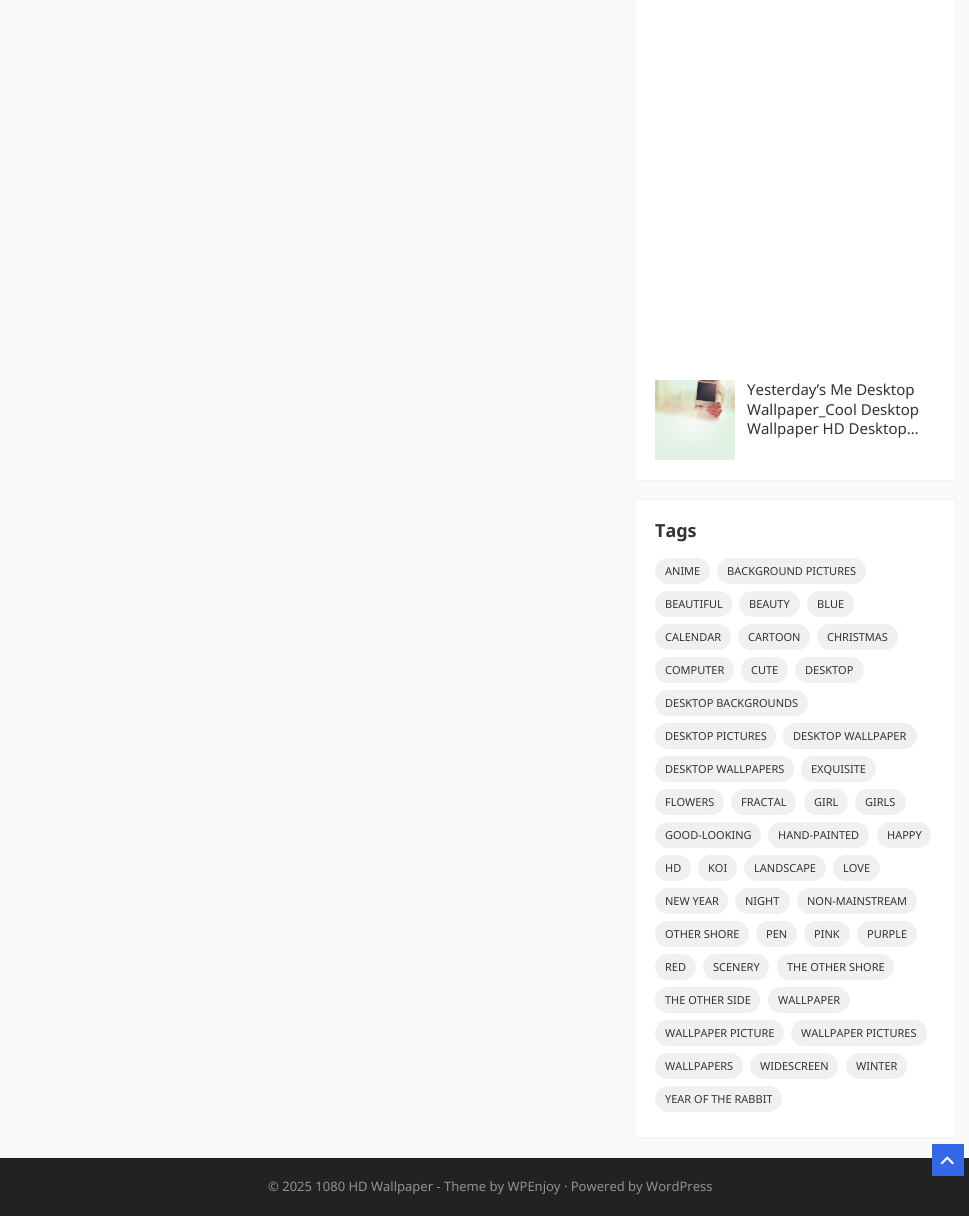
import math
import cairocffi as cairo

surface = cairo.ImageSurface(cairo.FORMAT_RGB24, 969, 1216)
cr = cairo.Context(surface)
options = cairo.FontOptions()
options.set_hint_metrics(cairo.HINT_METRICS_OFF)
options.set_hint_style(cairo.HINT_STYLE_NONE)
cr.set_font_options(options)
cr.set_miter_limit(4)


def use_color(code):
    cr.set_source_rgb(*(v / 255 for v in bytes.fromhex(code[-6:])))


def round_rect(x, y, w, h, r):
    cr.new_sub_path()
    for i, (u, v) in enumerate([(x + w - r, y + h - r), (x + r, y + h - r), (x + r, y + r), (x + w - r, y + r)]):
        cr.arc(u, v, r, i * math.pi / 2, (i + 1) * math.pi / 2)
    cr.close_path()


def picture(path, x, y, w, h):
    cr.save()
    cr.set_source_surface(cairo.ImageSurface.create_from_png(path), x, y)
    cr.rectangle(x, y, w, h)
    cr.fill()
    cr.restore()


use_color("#f9f9f9")
cr.paint()
cr.rectangle(634.5, -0.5, 321, 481)
use_color("#f2f2f2")
cr.set_line_width(1)
cr.stroke()
use_color("#ffffff")
cr.rectangle(635, 0, 320, 480)
cr.fill()
picture("img1.png", 655, 380, 80, 80)
cr.select_font_face("Noto Sans")
cr.set_font_size(15)
use_color("#333333")
cr.move_to(747, 395)
cr.show_text("Yesterday’s Me Desktop")
cr.move_to(747, 415)
cr.show_text("Wallpaper_Cool Desktop")
cr.move_to(747, 434)
cr.show_text("Wallpaper HD Desktop…")
cr.rectangle(634.5, 499.5, 321, 638)
use_color("#f2f2f2")
cr.stroke()
use_color("#ffffff")
cr.rectangle(635, 500, 320, 637)
cr.fill()
cr.select_font_face("Noto Sans", cairo.FONT_SLANT_NORMAL, cairo.FONT_WEIGHT_BOLD)
cr.set_font_size(18)
use_color("#333333")
cr.move_to(655, 537)
cr.show_text("Tags")
use_color("#f0f0f0")
round_rect(655, 558, 55, 26, 13)
cr.fill()
cr.select_font_face("Noto Sans")
cr.set_font_size(11)
use_color("#333333")
cr.move_to(665, 575)
cr.show_text("ANIME")
use_color("#f0f0f0")
round_rect(717, 558, 149, 26, 13)
cr.fill()
use_color("#333333")
cr.move_to(727, 575)
cr.show_text("BACKGROUND PICTURES")
use_color("#f0f0f0")
round_rect(655, 591, 77, 26, 13)
cr.fill()
use_color("#333333")
cr.move_to(665, 608)
cr.show_text("BEAUTIFUL")
use_color("#f0f0f0")
round_rect(739, 591, 61, 26, 13)
cr.fill()
use_color("#333333")
cr.move_to(749, 608)
cr.show_text("BEAUTY")
use_color("#f0f0f0")
round_rect(807, 591, 47, 26, 13)
cr.fill()
use_color("#333333")
cr.move_to(817, 608)
cr.show_text("BLUE")
use_color("#f0f0f0")
round_rect(655, 624, 76, 26, 13)
cr.fill()
use_color("#333333")
cr.move_to(665, 641)
cr.show_text("CALENDAR")
use_color("#f0f0f0")
round_rect(738, 624, 72, 26, 13)
cr.fill()
use_color("#333333")
cr.move_to(748, 641)
cr.show_text("CARTOON")
use_color("#f0f0f0")
round_rect(817, 624, 81, 26, 13)
cr.fill()
use_color("#333333")
cr.move_to(827, 641)
cr.show_text("CHRISTMAS")
use_color("#f0f0f0")
round_rect(655, 657, 79, 26, 13)
cr.fill()
use_color("#333333")
cr.move_to(665, 674)
cr.show_text("COMPUTER")
use_color("#f0f0f0")
round_rect(741, 657, 47, 26, 13)
cr.fill()
use_color("#333333")
cr.move_to(751, 674)
cr.show_text("CUTE")
use_color("#f0f0f0")
round_rect(795, 657, 69, 26, 13)
cr.fill()
use_color("#333333")
cr.move_to(805, 674)
cr.show_text("DESKTOP")
use_color("#f0f0f0")
round_rect(655, 690, 153, 26, 13)
cr.fill()
use_color("#333333")
cr.move_to(665, 707)
cr.show_text("DESKTOP BACKGROUNDS")
use_color("#f0f0f0")
round_rect(655, 723, 121, 26, 13)
cr.fill()
use_color("#333333")
cr.move_to(665, 740)
cr.show_text("DESKTOP PICTURES")
use_color("#f0f0f0")
round_rect(783, 723, 134, 26, 13)
cr.fill()
use_color("#333333")
cr.move_to(793, 740)
cr.show_text("DESKTOP WALLPAPER")
use_color("#f0f0f0")
round_rect(655, 756, 139, 26, 13)
cr.fill()
use_color("#333333")
cr.move_to(665, 773)
cr.show_text("DESKTOP WALLPAPERS")
use_color("#f0f0f0")
round_rect(801, 756, 75, 26, 13)
cr.fill()
use_color("#333333")
cr.move_to(811, 773)
cr.show_text("EXQUISITE")
use_color("#f0f0f0")
round_rect(655, 789, 69, 26, 13)
cr.fill()
use_color("#333333")
cr.move_to(665, 806)
cr.show_text("FLOWERS")
use_color("#f0f0f0")
round_rect(731, 789, 65, 26, 13)
cr.fill()
use_color("#333333")
cr.move_to(741, 806)
cr.show_text("FRACTAL")
use_color("#f0f0f0")
round_rect(804, 789, 44, 26, 13)
cr.fill()
use_color("#333333")
cr.move_to(814, 806)
cr.show_text("GIRL")
use_color("#f0f0f0")
round_rect(855, 789, 51, 26, 13)
cr.fill()
use_color("#333333")
cr.move_to(865, 806)
cr.show_text("GIRLS")
use_color("#f0f0f0")
round_rect(655, 822, 106, 26, 13)
cr.fill()
use_color("#333333")
cr.move_to(665, 839)
cr.show_text("GOOD-LOOKING")
use_color("#f0f0f0")
round_rect(768, 822, 101, 26, 13)
cr.fill()
use_color("#333333")
cr.move_to(778, 839)
cr.show_text("HAND-PAINTED")
use_color("#f0f0f0")
round_rect(877, 822, 54, 26, 13)
cr.fill()
use_color("#333333")
cr.move_to(887, 839)
cr.show_text("HAPPY")
use_color("#f0f0f0")
round_rect(655, 855, 36, 26, 13)
cr.fill()
use_color("#333333")
cr.move_to(665, 872)
cr.show_text("HD")
use_color("#f0f0f0")
round_rect(698, 855, 39, 26, 13)
cr.fill()
use_color("#333333")
cr.move_to(708, 872)
cr.show_text("KOI")
use_color("#f0f0f0")
round_rect(744, 855, 82, 26, 13)
cr.fill()
use_color("#333333")
cr.move_to(754, 872)
cr.show_text("LANDSCAPE")
use_color("#f0f0f0")
round_rect(833, 855, 47, 26, 13)
cr.fill()
use_color("#333333")
cr.move_to(843, 872)
cr.show_text("LOVE")
use_color("#f0f0f0")
round_rect(655, 888, 73, 26, 13)
cr.fill()
use_color("#333333")
cr.move_to(665, 905)
cr.show_text("NEW YEAR")
use_color("#f0f0f0")
round_rect(735, 888, 55, 26, 13)
cr.fill()
use_color("#333333")
cr.move_to(745, 905)
cr.show_text("NIGHT")
use_color("#f0f0f0")
round_rect(797, 888, 120, 26, 13)
cr.fill()
use_color("#333333")
cr.move_to(807, 905)
cr.show_text("NON-MAINSTREAM")
use_color("#f0f0f0")
round_rect(655, 921, 94, 26, 13)
cr.fill()
use_color("#333333")
cr.move_to(665, 938)
cr.show_text("OTHER SHORE")
use_color("#f0f0f0")
round_rect(756, 921, 41, 26, 13)
cr.fill()
use_color("#333333")
cr.move_to(766, 938)
cr.show_text("PEN")
use_color("#f0f0f0")
round_rect(804, 921, 46, 26, 13)
cr.fill()
use_color("#333333")
cr.move_to(814, 938)
cr.show_text("PINK")
use_color("#f0f0f0")
round_rect(857, 921, 60, 26, 13)
cr.fill()
use_color("#333333")
cr.move_to(867, 938)
cr.show_text("PURPLE")
use_color("#f0f0f0")
round_rect(655, 954, 41, 26, 13)
cr.fill()
use_color("#333333")
cr.move_to(665, 971)
cr.show_text("RED")
use_color("#f0f0f0")
round_rect(703, 954, 66, 26, 13)
cr.fill()
use_color("#333333")
cr.move_to(713, 971)
cr.show_text("SCENERY")
use_color("#f0f0f0")
round_rect(777, 954, 117, 26, 13)
cr.fill()
use_color("#333333")
cr.move_to(787, 971)
cr.show_text("THE OTHER SHORE")
use_color("#f0f0f0")
round_rect(655, 987, 105, 26, 13)
cr.fill()
use_color("#333333")
cr.move_to(665, 1004)
cr.show_text("THE OTHER SIDE")
use_color("#f0f0f0")
round_rect(768, 987, 82, 26, 13)
cr.fill()
use_color("#333333")
cr.move_to(778, 1004)
cr.show_text("WALLPAPER")
use_color("#f0f0f0")
round_rect(655, 1020, 129, 26, 13)
cr.fill()
use_color("#333333")
cr.move_to(665, 1037)
cr.show_text("WALLPAPER PICTURE")
use_color("#f0f0f0")
round_rect(791, 1020, 136, 26, 13)
cr.fill()
use_color("#333333")
cr.move_to(801, 1037)
cr.show_text("WALLPAPER PICTURES")
use_color("#f0f0f0")
round_rect(655, 1053, 88, 26, 13)
cr.fill()
use_color("#333333")
cr.move_to(665, 1070)
cr.show_text("WALLPAPERS")
use_color("#f0f0f0")
round_rect(750, 1053, 88, 26, 13)
cr.fill()
use_color("#333333")
cr.move_to(760, 1070)
cr.show_text("WIDESCREEN")
use_color("#f0f0f0")
round_rect(846, 1053, 61, 26, 13)
cr.fill()
use_color("#333333")
cr.move_to(856, 1070)
cr.show_text("WINTER")
use_color("#f0f0f0")
round_rect(655, 1086, 127, 26, 13)
cr.fill()
use_color("#333333")
cr.move_to(665, 1103)
cr.show_text("YEAR OF THE RABBIT")
use_color("#222222")
cr.rectangle(0, 1158, 969, 58)
cr.fill()
cr.set_font_size(13)
use_color("#919191")
cr.move_to(268, 1191)
cr.show_text("© 2025 1080 HD Wallpaper - Theme by WPEnjoy · Powered by WordPress")
use_color("#3369e7")
cr.rectangle(932, 1144, 32, 32)
cr.fill()
picture("img2.png", 940, 1156, 14, 9)
surface.write_to_png("result.png")
